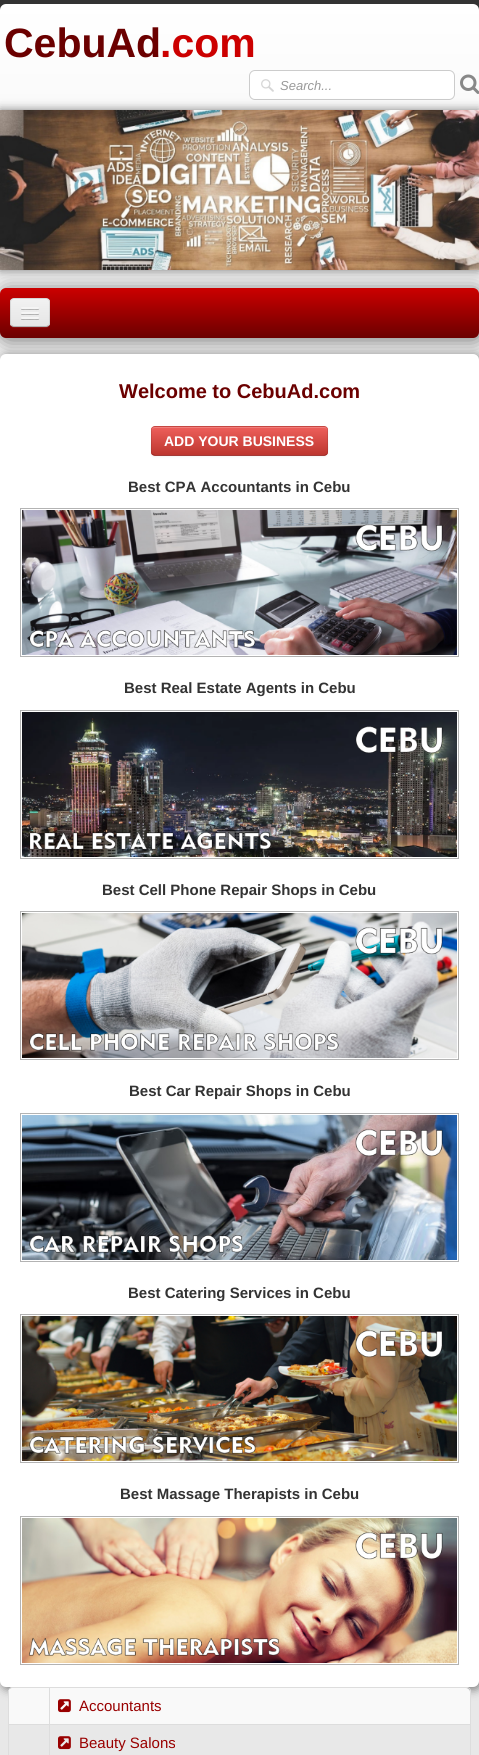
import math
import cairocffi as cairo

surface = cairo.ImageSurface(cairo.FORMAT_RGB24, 479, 1755)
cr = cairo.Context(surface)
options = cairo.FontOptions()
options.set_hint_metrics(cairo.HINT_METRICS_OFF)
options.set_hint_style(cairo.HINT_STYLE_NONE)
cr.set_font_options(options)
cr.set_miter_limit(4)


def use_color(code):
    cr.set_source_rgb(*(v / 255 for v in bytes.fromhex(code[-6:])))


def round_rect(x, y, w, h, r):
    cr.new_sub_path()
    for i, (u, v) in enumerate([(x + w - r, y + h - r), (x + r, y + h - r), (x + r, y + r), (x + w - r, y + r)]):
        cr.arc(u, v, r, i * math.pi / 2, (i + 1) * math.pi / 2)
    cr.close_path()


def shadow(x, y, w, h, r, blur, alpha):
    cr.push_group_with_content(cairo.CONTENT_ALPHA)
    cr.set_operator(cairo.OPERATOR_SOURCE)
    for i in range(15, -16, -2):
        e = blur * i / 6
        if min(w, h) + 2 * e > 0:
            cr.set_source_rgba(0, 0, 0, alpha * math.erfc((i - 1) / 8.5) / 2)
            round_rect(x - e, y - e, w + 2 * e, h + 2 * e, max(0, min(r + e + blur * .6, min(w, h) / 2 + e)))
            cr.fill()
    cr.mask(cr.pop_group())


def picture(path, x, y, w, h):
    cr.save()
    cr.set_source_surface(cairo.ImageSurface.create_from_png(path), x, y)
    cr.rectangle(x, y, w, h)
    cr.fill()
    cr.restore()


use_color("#333333")
cr.paint()
gradient = cairo.LinearGradient(239, 4, 240, 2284)
gradient.add_color_stop_rgba(0, 1, 1, 1, 1)
gradient.add_color_stop_rgba(0.2, 0.91, 0.91, 0.91, 1)
cr.set_source(gradient)
round_rect(0, 4, 479, 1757, 6)
cr.fill()
cr.select_font_face("Liberation Sans", cairo.FONT_SLANT_NORMAL, cairo.FONT_WEIGHT_BOLD)
cr.set_font_size(41)
use_color("#6b0000")
cr.move_to(4, 57)
cr.show_text("CebuAd")
use_color("#cc0000")
cr.move_to(160, 57)
cr.show_text(".com")
use_color("#ffffff")
round_rect(249, 70, 206, 30, 6)
cr.fill()
picture("img1.png", 261, 79, 13, 13)
round_rect(249.5, 70.5, 205, 29, 5.5)
use_color("#cccccc")
cr.set_line_width(1)
cr.stroke()
cr.select_font_face("Liberation Sans", cairo.FONT_SLANT_ITALIC)
cr.set_font_size(13)
use_color("#999999")
cr.move_to(280, 90)
cr.show_text("Search...")
picture("img2.png", 460, 74, 19, 20)
use_color("#000000")
shadow(0, 110, 479, 160, 0, 5, 0.5)
shadow(2, 290, 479, 50, 6, 10, 0.5)
picture("img3.png", 0, 110, 479, 160)
gradient = cairo.LinearGradient(240, 288, 240, 338)
gradient.add_color_stop_rgba(0, 0.8, 0, 0, 1)
gradient.add_color_stop_rgba(1, 0.42, 0, 0, 1)
cr.set_source(gradient)
round_rect(0, 288, 479, 50, 6)
cr.fill()
use_color("#891313")
cr.new_path()
cr.move_to(10, 323)
cr.curve_to(10, 329, 15, 328, 19, 328)
cr.line_to(41, 328)
cr.curve_to(45, 328, 50, 329, 50, 323)
cr.curve_to(50, 325, 48, 327, 46, 327)
cr.line_to(14, 327)
cr.curve_to(12, 327, 10, 325, 10, 323)
cr.close_path()
cr.fill()
use_color("#ededed")
round_rect(10, 298, 40, 29, 4)
cr.fill()
cr.save()
round_rect(10, 298, 40, 29, 4)
cr.clip()
gradient = cairo.LinearGradient(30, 299, 30, 326)
gradient.add_color_stop_rgba(0, 0.949, 0.949, 0.949, 1)
gradient.add_color_stop_rgba(1, 0.898, 0.898, 0.898, 1)
cr.set_source(gradient)
cr.rectangle(10, 299, 40, 27)
cr.fill()
cr.restore()
cr.new_path()
cr.move_to(48.5, 325.5)
cr.curve_to(48, 326, 47, 326.5, 46, 326.5)
cr.line_to(14, 326.5)
cr.curve_to(13, 326.5, 12, 326, 11.5, 325.5)
cr.set_source_rgba(0, 0, 0, 0.25)
cr.stroke()
cr.new_path()
cr.move_to(11.5, 325.5)
cr.curve_to(11, 325, 10.5, 324, 10.5, 323)
cr.line_to(10.5, 302)
cr.curve_to(10.5, 301, 11, 300, 11.5, 299.5)
cr.curve_to(12, 299, 13, 298.5, 14, 298.5)
cr.line_to(46, 298.5)
cr.curve_to(47, 298.5, 48, 299, 48.5, 299.5)
cr.curve_to(49, 300, 49.5, 301, 49.5, 302)
cr.line_to(49.5, 323)
cr.curve_to(49.5, 324, 49, 325, 48.5, 325.5)
cr.set_source_rgba(0, 0, 0, 0.1)
cr.stroke()
use_color("#b2b2b2")
cr.new_path()
cr.move_to(21, 308.5)
cr.curve_to(20, 310.5, 24.5, 310, 24.5, 310)
cr.line_to(35.5, 310)
cr.curve_to(35.5, 310, 40, 310.5, 39, 308.5)
cr.curve_to(38, 309.5, 31.5, 309, 30, 309)
cr.curve_to(28.5, 309, 22, 309.5, 21, 308.5)
cr.close_path()
cr.fill()
use_color("#f5f5f5")
round_rect(21, 307, 18, 2, 1)
cr.fill()
use_color("#b0b0b0")
cr.new_path()
cr.move_to(21, 313.5)
cr.curve_to(20, 315.5, 24.5, 315, 24.5, 315)
cr.line_to(35.5, 315)
cr.curve_to(35.5, 315, 40, 315.5, 39, 313.5)
cr.curve_to(38, 314.5, 31.5, 314, 30, 314)
cr.curve_to(28.5, 314, 22, 314.5, 21, 313.5)
cr.close_path()
cr.fill()
use_color("#f5f5f5")
round_rect(21, 312, 18, 2, 1)
cr.fill()
use_color("#aeaeae")
cr.new_path()
cr.move_to(21, 318.5)
cr.curve_to(20, 320.5, 24.5, 320, 24.5, 320)
cr.line_to(35.5, 320)
cr.curve_to(35.5, 320, 40, 320.5, 39, 318.5)
cr.curve_to(38, 319.5, 31.5, 319, 30, 319)
cr.curve_to(28.5, 319, 22, 319.5, 21, 318.5)
cr.close_path()
cr.fill()
use_color("#f5f5f5")
round_rect(21, 317, 18, 2, 1)
cr.fill()
use_color("#000000")
shadow(2, 356, 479, 1333, 6, 5, 0.5)
use_color("#ffffff")
round_rect(0, 354, 479, 1333, 6)
cr.fill()
cr.select_font_face("Liberation Sans", cairo.FONT_SLANT_NORMAL, cairo.FONT_WEIGHT_BOLD)
cr.set_font_size(20)
use_color("#6b0000")
cr.move_to(119, 398)
cr.show_text("Welcome to CebuAd.com")
use_color("#000000")
shadow(151, 427, 177, 30, 4, 1, 0.05)
use_color("#da4f49")
round_rect(151, 426, 177, 30, 4)
cr.fill()
cr.save()
round_rect(151, 426, 177, 30, 4)
cr.clip()
gradient = cairo.LinearGradient(240, 427, 240, 455)
gradient.add_color_stop_rgba(0, 0.933, 0.373, 0.357, 1)
gradient.add_color_stop_rgba(1, 0.741, 0.212, 0.184, 1)
cr.set_source(gradient)
cr.rectangle(151, 427, 177, 28)
cr.fill()
cr.restore()
use_color("#f17e7b")
cr.new_path()
cr.move_to(155, 428)
cr.line_to(324, 428)
cr.curve_to(326, 428, 327, 429, 327, 431)
cr.line_to(327, 430)
cr.curve_to(327, 428, 326, 427, 324, 427)
cr.line_to(155, 427)
cr.curve_to(153, 427, 152, 428, 152, 430)
cr.line_to(152, 431)
cr.curve_to(152, 429, 153, 428, 155, 428)
cr.close_path()
cr.fill()
cr.new_path()
cr.move_to(326.5, 454.5)
cr.line_to(324.5, 455.5)
cr.line_to(183, 455.5)
cr.line_to(155, 455.5)
cr.line_to(152.5, 454.5)
cr.set_source_rgba(0, 0, 0, 0.25)
cr.stroke()
cr.new_path()
cr.move_to(152.5, 454.5)
cr.curve_to(150.5, 452.5, 151.5, 444, 151.5, 441)
cr.line_to(151.5, 433.5)
cr.curve_to(151.5, 431, 151, 426.5, 155, 426.5)
cr.line_to(324, 426.5)
cr.curve_to(328, 426.5, 327.5, 431, 327.5, 433.5)
cr.line_to(327.5, 441)
cr.curve_to(327.5, 444, 328.5, 452.5, 326.5, 454.5)
cr.set_source_rgba(0, 0, 0, 0.1)
cr.stroke()
cr.set_font_size(14)
use_color("#ffffff")
cr.move_to(164, 446)
cr.show_text("ADD YOUR BUSINESS")
cr.set_font_size(15)
use_color("#333333")
cr.move_to(128, 492)
cr.show_text("Best CPA Accountants in Cebu")
cr.rectangle(20.5, 508.5, 438, 148)
use_color("#b3b3b3")
cr.stroke()
picture("img4.png", 22, 510, 435, 145)
use_color("#333333")
cr.move_to(124, 693)
cr.show_text("Best Real Estate Agents in Cebu")
cr.rectangle(20.5, 710.5, 438, 148)
use_color("#b3b3b3")
cr.stroke()
picture("img5.png", 22, 712, 435, 145)
use_color("#333333")
cr.move_to(102, 895)
cr.show_text("Best Cell Phone Repair Shops in Cebu")
cr.rectangle(20.5, 911.5, 438, 148)
use_color("#b3b3b3")
cr.stroke()
picture("img6.png", 22, 913, 435, 145)
use_color("#333333")
cr.move_to(129, 1096)
cr.show_text("Best Car Repair Shops in Cebu")
cr.rectangle(20.5, 1113.5, 438, 148)
use_color("#b3b3b3")
cr.stroke()
picture("img7.png", 22, 1115, 435, 145)
use_color("#333333")
cr.move_to(128, 1298)
cr.show_text("Best Catering Services in Cebu")
cr.rectangle(20.5, 1314.5, 438, 148)
use_color("#b3b3b3")
cr.stroke()
picture("img8.png", 22, 1316, 435, 145)
use_color("#333333")
cr.move_to(120, 1499)
cr.show_text("Best Massage Therapists in Cebu")
cr.rectangle(20.5, 1516.5, 438, 148)
use_color("#b3b3b3")
cr.stroke()
picture("img9.png", 22, 1518, 435, 145)
use_color("#dddddd")
cr.set_fill_rule(cairo.FILL_RULE_EVEN_ODD)
cr.new_path()
cr.move_to(12, 1687)
cr.line_to(467, 1687)
cr.curve_to(469, 1687, 471, 1689, 471, 1691)
cr.line_to(471, 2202)
cr.curve_to(471, 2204, 469, 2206, 467, 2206)
cr.line_to(12, 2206)
cr.curve_to(10, 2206, 8, 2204, 8, 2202)
cr.line_to(8, 1691)
cr.curve_to(8, 1689, 10, 1687, 12, 1687)
cr.close_path()
cr.move_to(12, 1688)
cr.line_to(467, 1688)
cr.curve_to(469, 1688, 470, 1689, 470, 1691)
cr.line_to(470, 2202)
cr.curve_to(470, 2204, 469, 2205, 467, 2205)
cr.line_to(12, 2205)
cr.curve_to(10, 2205, 8, 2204, 8, 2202)
cr.line_to(8, 1691)
cr.curve_to(8, 1689, 10, 1688, 12, 1688)
cr.close_path()
cr.fill()
use_color("#f9f9f9")
cr.new_path()
cr.move_to(12, 1688)
cr.line_to(49, 1688)
cr.line_to(49, 1724)
cr.line_to(8, 1724)
cr.line_to(8, 1692)
cr.curve_to(8, 1690, 10, 1688, 12, 1688)
cr.close_path()
cr.fill()
use_color("#dddddd")
cr.rectangle(8, 1690, 1, 34)
cr.fill()
use_color("#f9f9f9")
cr.new_path()
cr.move_to(49, 1688)
cr.line_to(466, 1688)
cr.curve_to(468, 1688, 470, 1690, 470, 1692)
cr.line_to(470, 1724)
cr.line_to(49, 1724)
cr.close_path()
cr.fill()
use_color("#dddddd")
cr.rectangle(49, 1688, 1, 36)
cr.fill()
picture("img10.png", 58, 1699, 13, 14)
cr.select_font_face("Liberation Sans")
use_color("#990000")
cr.move_to(79, 1711)
cr.show_text("Accountants")
use_color("#dddddd")
cr.rectangle(8, 1724, 462, 1)
cr.fill()
cr.rectangle(8, 1724, 1, 31)
cr.fill()
cr.rectangle(49, 1724, 1, 31)
cr.fill()
picture("img11.png", 58, 1736, 13, 14)
use_color("#990000")
cr.move_to(79, 1748)
cr.show_text("Beauty Salons")
surface.write_to_png("result.png")
